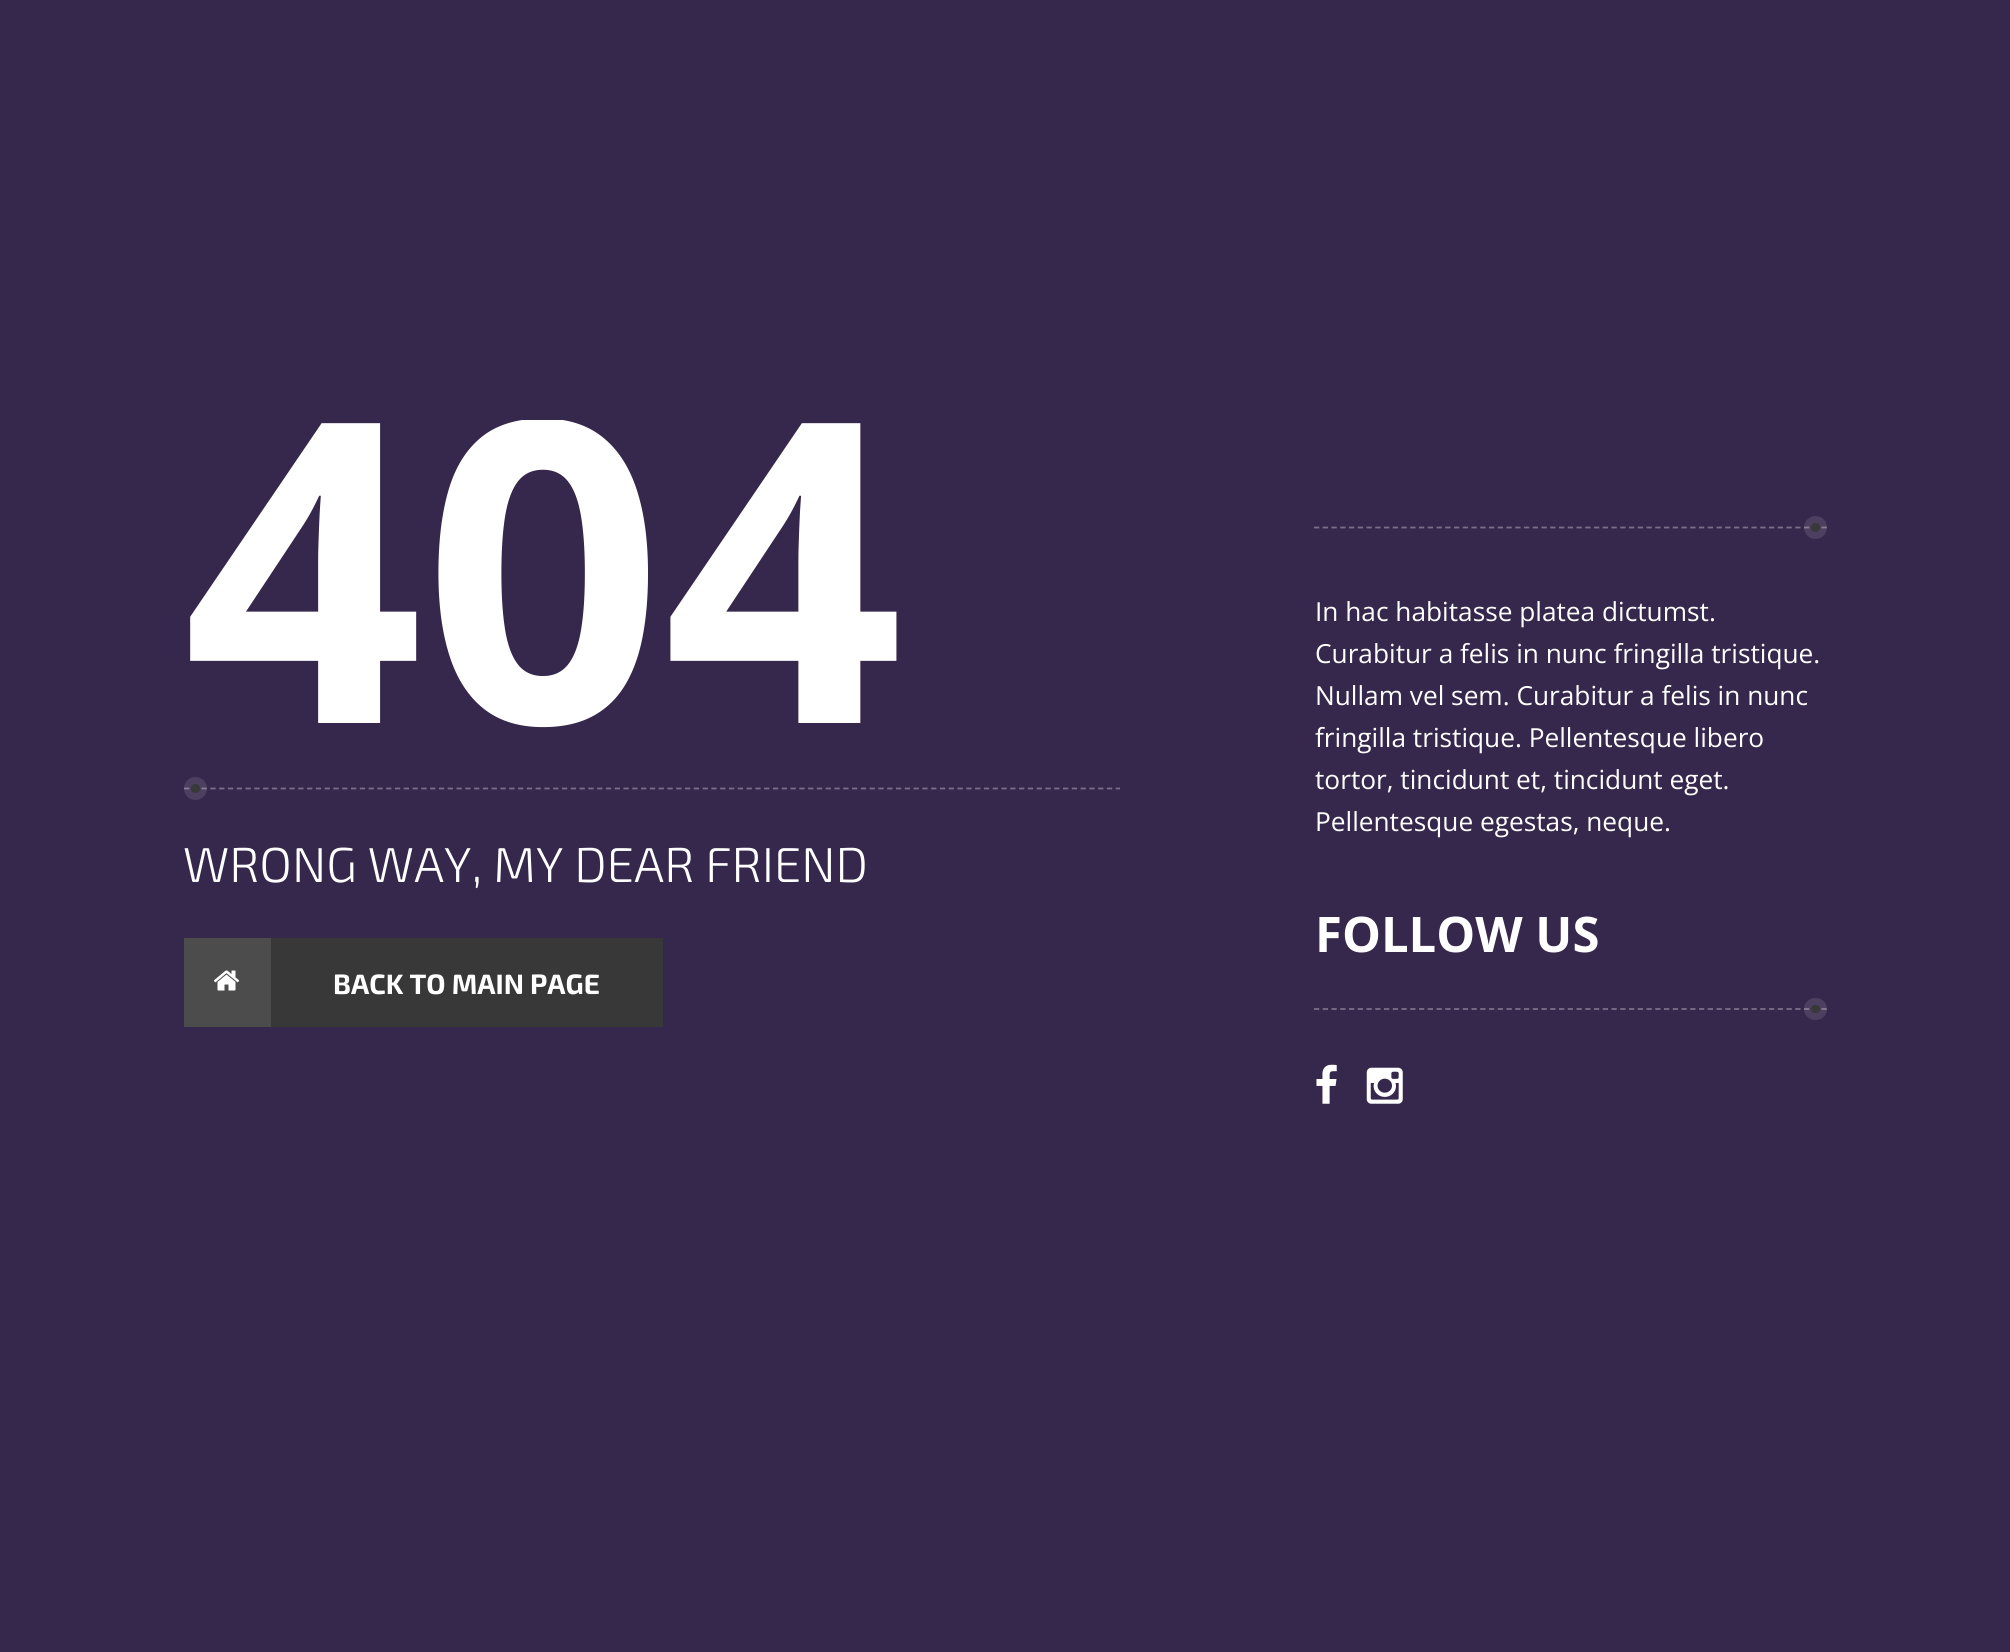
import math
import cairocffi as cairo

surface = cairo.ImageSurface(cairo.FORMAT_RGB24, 2010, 1652)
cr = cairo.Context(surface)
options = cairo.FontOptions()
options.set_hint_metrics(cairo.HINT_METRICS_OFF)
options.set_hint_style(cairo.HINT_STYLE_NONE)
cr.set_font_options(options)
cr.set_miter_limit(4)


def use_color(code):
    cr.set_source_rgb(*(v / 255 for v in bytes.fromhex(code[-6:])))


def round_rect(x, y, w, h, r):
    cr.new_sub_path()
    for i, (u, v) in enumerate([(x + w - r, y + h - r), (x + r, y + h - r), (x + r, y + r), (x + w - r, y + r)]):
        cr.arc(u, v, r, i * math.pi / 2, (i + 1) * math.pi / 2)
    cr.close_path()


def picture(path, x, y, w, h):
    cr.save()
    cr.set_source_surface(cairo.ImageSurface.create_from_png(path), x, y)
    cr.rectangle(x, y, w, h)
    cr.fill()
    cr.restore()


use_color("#36274c")
cr.paint()
cr.new_path()
cr.move_to(184, 788.5)
cr.line_to(1120, 788.5)
use_color("#786e87")
cr.set_line_width(1.8)
cr.set_dash([5.25, 3.54])
cr.stroke()
cr.save()
cr.rectangle(0, 420, 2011, 714)
cr.clip()
cr.select_font_face("Open Sans", cairo.FONT_SLANT_NORMAL, cairo.FONT_WEIGHT_BOLD)
cr.set_font_size(420)
use_color("#ffffff")
cr.move_to(183, 723)
cr.show_text("404")
cr.restore()
cr.set_source_rgba(1, 1, 1, 0.11)
cr.new_path()
cr.arc(195.5, 788.5, 11.5, 0, 2 * math.pi)
cr.fill()
use_color("#383838")
cr.arc(195.5, 788.5, 4.5, 0, 2 * math.pi)
cr.fill()
cr.select_font_face("Exo 2 Light")
cr.set_font_size(49)
use_color("#ffffff")
cr.move_to(183, 882)
cr.show_text("WRONG WAY, MY DEAR FRIEND")
use_color("#383838")
cr.rectangle(271, 938, 392, 89)
cr.fill()
use_color("#4c4c4c")
cr.rectangle(184, 938, 87, 89)
cr.fill()
picture("img1.png", 213, 970, 27, 21)
cr.select_font_face("Exo 2", cairo.FONT_SLANT_NORMAL, cairo.FONT_WEIGHT_BOLD)
cr.set_font_size(28)
use_color("#ffffff")
cr.move_to(333, 994)
cr.show_text("BACK TO MAIN PAGE")
cr.new_path()
cr.move_to(1314, 527.5)
cr.line_to(1827, 527.5)
use_color("#786e87")
cr.set_dash([5.25, 3.5])
cr.stroke()
cr.set_source_rgba(1, 1, 1, 0.11)
cr.arc(1815.5, 527.5, 11.5, 0, 2 * math.pi)
cr.fill()
use_color("#383838")
cr.arc(1815.5, 527.5, 4.5, 0, 2 * math.pi)
cr.fill()
cr.select_font_face("Open Sans")
cr.set_font_size(26.25)
use_color("#ffffff")
cr.move_to(1315, 621)
cr.show_text("In hac habitasse platea dictumst.")
cr.move_to(1315, 663)
cr.show_text("Curabitur a felis in nunc fringilla tristique.")
cr.move_to(1315, 705)
cr.show_text("Nullam vel sem. Curabitur a felis in nunc")
cr.move_to(1315, 747)
cr.show_text("fringilla tristique. Pellentesque libero")
cr.move_to(1315, 789)
cr.show_text("tortor, tincidunt et, tincidunt eget.")
cr.move_to(1315, 831)
cr.show_text("Pellentesque egestas, neque.")
cr.new_path()
cr.move_to(1314, 1009)
cr.line_to(1827, 1009)
use_color("#786e87")
cr.stroke()
cr.select_font_face("Open Sans", cairo.FONT_SLANT_NORMAL, cairo.FONT_WEIGHT_BOLD)
cr.set_font_size(49)
use_color("#ffffff")
cr.move_to(1315, 952)
cr.show_text("FOLLOW US")
cr.set_source_rgba(1, 1, 1, 0.11)
round_rect(1804, 998, 23, 22, 11)
cr.fill()
use_color("#383838")
round_rect(1811, 1005, 9, 8, 4)
cr.fill()
picture("img2.png", 1316, 1064, 21, 40)
picture("img3.png", 1366, 1067, 37, 37)
surface.write_to_png("result.png")
